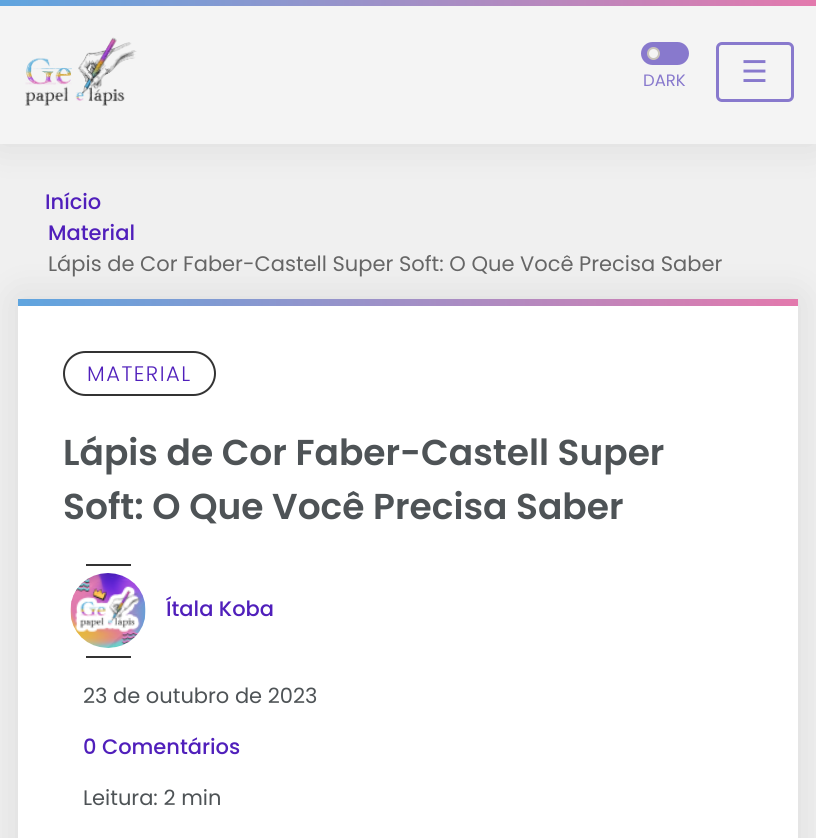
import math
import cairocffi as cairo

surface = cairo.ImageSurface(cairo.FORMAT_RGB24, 816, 838)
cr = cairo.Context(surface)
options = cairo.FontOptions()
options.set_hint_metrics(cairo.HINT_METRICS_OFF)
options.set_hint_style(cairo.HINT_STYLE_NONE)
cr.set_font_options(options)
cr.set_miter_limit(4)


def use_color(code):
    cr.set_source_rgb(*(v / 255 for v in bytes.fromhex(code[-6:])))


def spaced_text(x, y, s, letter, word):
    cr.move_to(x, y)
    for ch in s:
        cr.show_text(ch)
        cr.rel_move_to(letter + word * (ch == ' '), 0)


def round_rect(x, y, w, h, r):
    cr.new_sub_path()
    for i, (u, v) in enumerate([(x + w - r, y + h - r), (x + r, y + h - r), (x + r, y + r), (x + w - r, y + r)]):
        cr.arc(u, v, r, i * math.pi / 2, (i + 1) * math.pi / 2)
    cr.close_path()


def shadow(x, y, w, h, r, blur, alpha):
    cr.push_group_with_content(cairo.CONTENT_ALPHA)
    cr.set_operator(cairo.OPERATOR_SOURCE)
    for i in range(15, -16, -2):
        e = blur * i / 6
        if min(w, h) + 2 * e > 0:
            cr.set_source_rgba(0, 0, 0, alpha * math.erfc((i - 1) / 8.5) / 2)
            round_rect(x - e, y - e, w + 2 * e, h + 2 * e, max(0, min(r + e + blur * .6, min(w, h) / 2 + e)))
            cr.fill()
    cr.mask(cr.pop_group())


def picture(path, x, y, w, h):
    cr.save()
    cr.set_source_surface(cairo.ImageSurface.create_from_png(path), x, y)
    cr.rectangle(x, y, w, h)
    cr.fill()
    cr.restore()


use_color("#f0f0f0")
cr.paint()
use_color("#000000")
shadow(0, 0, 816, 144, 0, 19, 0.1)
use_color("#f4f4f4")
cr.rectangle(0, 6, 816, 138)
cr.fill()
gradient = cairo.LinearGradient(0, 3, 816, 3)
gradient.add_color_stop_rgba(0, 0.373, 0.647, 0.875, 1)
gradient.add_color_stop_rgba(1, 0.89, 0.475, 0.678, 1)
cr.set_source(gradient)
cr.rectangle(0, 0, 816, 6)
cr.fill()
use_color("#8879cd")
round_rect(641, 42, 48, 23, 11.5)
cr.fill()
use_color("#f4f4f4")
cr.arc(653.5, 53.5, 5.5, 0, 2 * math.pi)
cr.fill_preserve()
use_color("#c8c3bc")
cr.stroke()
cr.select_font_face("Poppins")
cr.set_font_size(16.5)
use_color("#8879cd")
cr.move_to(643, 86)
cr.show_text("DARK")
picture("img1.png", 25, 37, 112, 69)
round_rect(717.5, 43.5, 75, 57, 4.5)
cr.set_line_width(3)
cr.stroke()
cr.select_font_face("DejaVu Sans")
cr.set_font_size(30)
cr.move_to(741, 82)
cr.show_text("☰")
cr.select_font_face("Poppins Medium")
cr.set_font_size(21)
use_color("#501fbb")
cr.move_to(45, 209)
cr.show_text("Início")
cr.move_to(48, 240)
cr.show_text("Material")
cr.select_font_face("Poppins")
use_color("#666666")
cr.move_to(48, 271)
cr.show_text("Lápis de Cor Faber-Castell Super Soft: O Que Você Precisa Saber")
use_color("#000000")
shadow(18, 299, 780, 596, 0, 19, 0.1)
use_color("#ffffff")
cr.rectangle(18, 306, 780, 532)
cr.fill()
gradient = cairo.LinearGradient(18, 302, 798, 302)
gradient.add_color_stop_rgba(0, 0.373, 0.647, 0.875, 1)
gradient.add_color_stop_rgba(1, 0.89, 0.475, 0.678, 1)
cr.set_source(gradient)
cr.rectangle(18, 299, 780, 7)
cr.fill()
round_rect(64, 352, 151, 43, 21.5)
use_color("#333333")
cr.set_line_width(2)
cr.stroke()
cr.select_font_face("Poppins Light")
use_color("#501fbb")
spaced_text(87, 381, "MATERIAL", 1.5, 0)
cr.select_font_face("Poppins SemiBold")
cr.set_font_size(36)
use_color("#4e5356")
cr.move_to(63, 465)
cr.show_text("Lápis de Cor Faber-Castell Super")
cr.move_to(63, 519)
cr.show_text("Soft: O Que Você Precisa Saber")
use_color("#333333")
cr.rectangle(86, 564, 45, 2)
cr.fill()
picture("img2.png", 70, 573, 76, 75)
cr.select_font_face("Poppins Medium")
cr.set_font_size(21)
use_color("#501fbb")
cr.move_to(166, 616)
cr.show_text("Ítala Koba")
use_color("#333333")
cr.rectangle(86, 656, 45, 2)
cr.fill()
cr.select_font_face("Poppins")
use_color("#4e5356")
cr.move_to(83, 703)
cr.show_text("23 de outubro de 2023")
cr.select_font_face("Poppins Medium")
use_color("#501fbb")
cr.move_to(83, 754)
cr.show_text("0 Comentários")
cr.select_font_face("Poppins")
use_color("#4e5356")
cr.move_to(83, 805)
cr.show_text("Leitura: 2 min")
surface.write_to_png("result.png")
